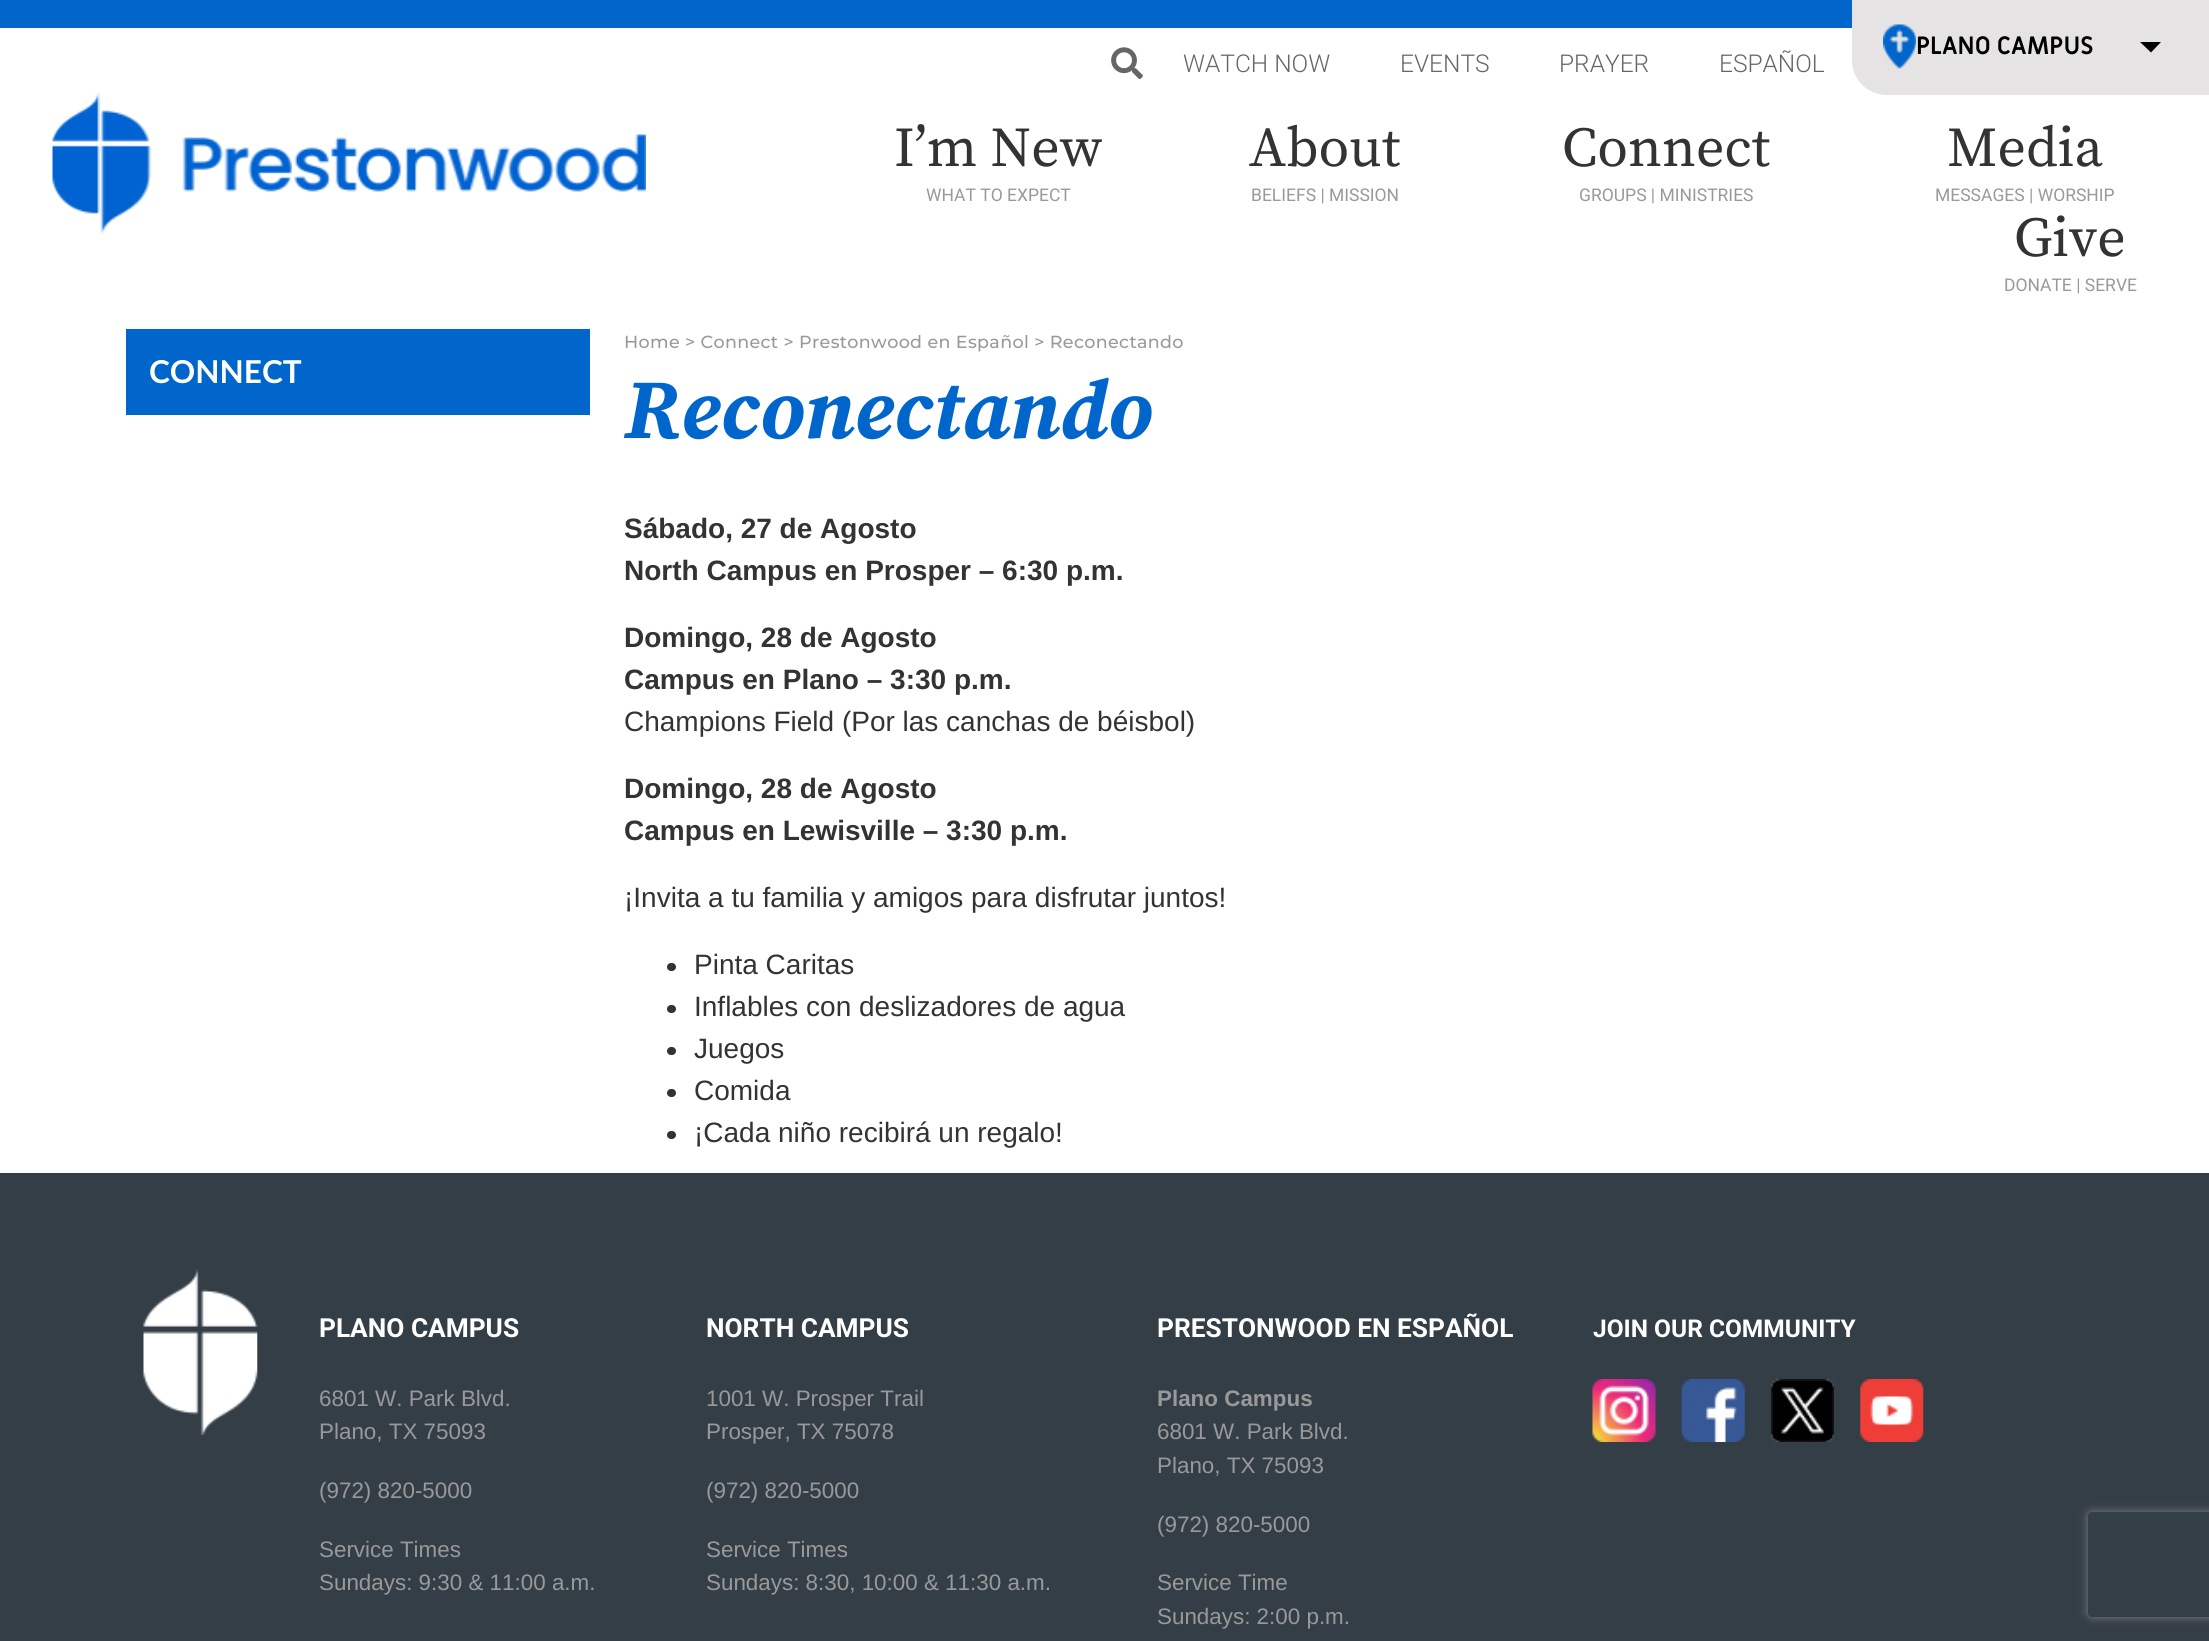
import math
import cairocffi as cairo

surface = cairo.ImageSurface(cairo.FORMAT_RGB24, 2209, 1641)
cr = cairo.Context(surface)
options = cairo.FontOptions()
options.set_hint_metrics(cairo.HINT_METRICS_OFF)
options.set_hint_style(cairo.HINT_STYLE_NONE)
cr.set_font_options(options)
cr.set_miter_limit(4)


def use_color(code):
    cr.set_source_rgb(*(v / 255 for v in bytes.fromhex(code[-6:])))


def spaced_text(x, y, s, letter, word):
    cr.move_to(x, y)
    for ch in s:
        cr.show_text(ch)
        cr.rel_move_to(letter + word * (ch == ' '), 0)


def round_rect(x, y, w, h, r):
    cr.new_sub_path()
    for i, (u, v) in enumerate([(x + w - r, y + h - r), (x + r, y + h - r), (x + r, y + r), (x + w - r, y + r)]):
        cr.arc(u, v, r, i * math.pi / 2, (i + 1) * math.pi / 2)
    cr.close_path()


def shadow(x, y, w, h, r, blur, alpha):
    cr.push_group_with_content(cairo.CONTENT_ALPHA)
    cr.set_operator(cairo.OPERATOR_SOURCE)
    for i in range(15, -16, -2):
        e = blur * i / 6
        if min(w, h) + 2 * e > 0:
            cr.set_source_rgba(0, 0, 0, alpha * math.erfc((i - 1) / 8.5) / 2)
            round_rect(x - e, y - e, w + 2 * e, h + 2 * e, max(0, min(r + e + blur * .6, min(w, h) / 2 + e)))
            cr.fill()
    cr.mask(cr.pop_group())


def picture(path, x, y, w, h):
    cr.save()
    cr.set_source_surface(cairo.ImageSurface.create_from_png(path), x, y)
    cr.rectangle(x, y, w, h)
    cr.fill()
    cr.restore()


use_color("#ffffff")
cr.paint()
use_color("#0066cc")
cr.rectangle(0, 0, 1852, 28)
cr.fill()
picture("img1.png", 1111, 47, 32, 33)
cr.select_font_face("Roboto Light")
cr.set_font_size(24.5)
use_color("#666666")
cr.move_to(1183, 72)
cr.show_text("WATCH NOW")
cr.move_to(1400, 72)
cr.show_text("EVENTS")
cr.move_to(1559, 72)
cr.show_text("PRAYER")
cr.move_to(1719, 72)
cr.show_text("ESPAÑOL")
use_color("#e5e3e3")
cr.new_path()
cr.move_to(1852, 0)
cr.line_to(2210, 0)
cr.line_to(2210, 95)
cr.line_to(1887, 95)
cr.curve_to(1867.5, 95, 1852, 79.5, 1852, 60)
cr.close_path()
cr.fill()
picture("img2.png", 1883, 24, 33, 45)
use_color("#000000")
cr.new_path()
cr.move_to(2140, 42)
cr.line_to(2151, 52.5)
cr.line_to(2161, 42)
cr.close_path()
cr.fill()
cr.select_font_face("Miriam Libre", cairo.FONT_SLANT_NORMAL, cairo.FONT_WEIGHT_BOLD)
cr.move_to(1916, 54)
cr.show_text("PLANO CAMPUS")
picture("img3.png", 52, 92, 594, 142)
cr.select_font_face("Source Serif Pro")
cr.set_font_size(56)
use_color("#333333")
cr.move_to(894, 166)
cr.show_text("I’m New")
cr.select_font_face("Roboto")
cr.set_font_size(17.5)
use_color("#999999")
cr.move_to(926, 201)
cr.show_text("WHAT TO EXPECT")
cr.select_font_face("Source Serif Pro")
cr.set_font_size(56)
use_color("#333333")
cr.move_to(1249, 166)
cr.show_text("About")
cr.select_font_face("Roboto")
cr.set_font_size(17.5)
use_color("#999999")
cr.move_to(1251, 201)
cr.show_text("BELIEFS | MISSION")
cr.select_font_face("Source Serif Pro")
cr.set_font_size(56)
use_color("#333333")
cr.move_to(1562, 166)
cr.show_text("Connect")
cr.select_font_face("Roboto")
cr.set_font_size(17.5)
use_color("#999999")
cr.move_to(1579, 201)
cr.show_text("GROUPS | MINISTRIES")
cr.select_font_face("Source Serif Pro")
cr.set_font_size(56)
use_color("#333333")
cr.move_to(1947, 166)
cr.show_text("Media")
cr.select_font_face("Roboto")
cr.set_font_size(17.5)
use_color("#999999")
cr.move_to(1935, 201)
cr.show_text("MESSAGES | WORSHIP")
cr.select_font_face("Source Serif Pro")
cr.set_font_size(56)
use_color("#333333")
cr.move_to(2014, 256)
cr.show_text("Give")
cr.select_font_face("Roboto")
cr.set_font_size(17.5)
use_color("#999999")
cr.move_to(2004, 291)
cr.show_text("DONATE | SERVE")
use_color("#0066cc")
cr.rectangle(126, 329, 464, 86)
cr.fill()
cr.select_font_face("Lato", cairo.FONT_SLANT_NORMAL, cairo.FONT_WEIGHT_BOLD)
cr.set_font_size(31.5)
use_color("#ffffff")
cr.move_to(149, 383)
cr.show_text("CONNECT")
cr.select_font_face("Montserrat Medium")
cr.set_font_size(17.5)
use_color("#999999")
spaced_text(624, 348, "Home > Connect > Prestonwood en Español > Reconectando", 0.35, 0)
cr.select_font_face("Source Serif Pro", cairo.FONT_SLANT_ITALIC, cairo.FONT_WEIGHT_BOLD)
cr.set_font_size(84)
use_color("#0066cc")
cr.move_to(624, 438)
cr.show_text("Reconectando")
cr.select_font_face("Liberation Sans", cairo.FONT_SLANT_NORMAL, cairo.FONT_WEIGHT_BOLD)
cr.set_font_size(28)
use_color("#333333")
cr.move_to(624, 538)
cr.show_text("Sábado, 27 de Agosto")
cr.move_to(624, 580)
cr.show_text("North Campus en Prosper – 6:30 p.m.")
cr.move_to(624, 647)
cr.show_text("Domingo, 28 de Agosto")
cr.move_to(624, 689)
cr.show_text("Campus en Plano – 3:30 p.m.")
cr.select_font_face("Liberation Sans")
cr.move_to(624, 731)
cr.show_text("Champions Field (Por las canchas de béisbol)")
cr.select_font_face("Liberation Sans", cairo.FONT_SLANT_NORMAL, cairo.FONT_WEIGHT_BOLD)
cr.move_to(624, 798)
cr.show_text("Domingo, 28 de Agosto")
cr.move_to(624, 840)
cr.show_text("Campus en Lewisville – 3:30 p.m.")
cr.select_font_face("Liberation Sans")
cr.move_to(624, 907)
cr.show_text("¡Invita a tu familia y amigos para disfrutar juntos!")
round_rect(667, 963, 9, 8, 4)
cr.fill()
cr.move_to(694, 974)
cr.show_text("Pinta Caritas")
round_rect(667, 1005, 9, 8, 4)
cr.fill()
cr.move_to(694, 1016)
cr.show_text("Inflables con deslizadores de agua")
round_rect(667, 1047, 9, 8, 4)
cr.fill()
cr.move_to(694, 1058)
cr.show_text("Juegos")
round_rect(667, 1089, 9, 8, 4)
cr.fill()
cr.move_to(694, 1100)
cr.show_text("Comida")
round_rect(667, 1131, 9, 8, 4)
cr.fill()
cr.move_to(694, 1142)
cr.show_text("¡Cada niño recibirá un regalo!")
use_color("#343e47")
cr.rectangle(0, 1173, 2209, 468)
cr.fill()
picture("img4.png", 143, 1269, 115, 166)
cr.select_font_face("Roboto", cairo.FONT_SLANT_NORMAL, cairo.FONT_WEIGHT_BOLD)
cr.set_font_size(26.25)
use_color("#ffffff")
cr.move_to(319, 1337)
cr.show_text("PLANO CAMPUS")
cr.select_font_face("Liberation Sans")
cr.set_font_size(22.4)
use_color("#999999")
cr.move_to(319, 1406)
cr.show_text("6801 W. Park Blvd.")
cr.move_to(319, 1439)
cr.show_text("Plano, TX 75093")
cr.move_to(319, 1498)
cr.show_text("(972) 820-5000")
cr.move_to(319, 1557)
cr.show_text("Service Times")
cr.move_to(319, 1590)
cr.show_text("Sundays: 9:30 & 11:00 a.m.")
cr.select_font_face("Roboto", cairo.FONT_SLANT_NORMAL, cairo.FONT_WEIGHT_BOLD)
cr.set_font_size(26.25)
use_color("#ffffff")
cr.move_to(706, 1337)
cr.show_text("NORTH CAMPUS")
cr.select_font_face("Liberation Sans")
cr.set_font_size(22.4)
use_color("#999999")
cr.move_to(706, 1406)
cr.show_text("1001 W. Prosper Trail")
cr.move_to(706, 1439)
cr.show_text("Prosper, TX 75078")
cr.move_to(706, 1498)
cr.show_text("(972) 820-5000")
cr.move_to(706, 1557)
cr.show_text("Service Times")
cr.move_to(706, 1590)
cr.show_text("Sundays: 8:30, 10:00 & 11:30 a.m.")
cr.select_font_face("Roboto", cairo.FONT_SLANT_NORMAL, cairo.FONT_WEIGHT_BOLD)
cr.set_font_size(26.25)
use_color("#ffffff")
cr.move_to(1157, 1337)
cr.show_text("PRESTONWOOD EN ESPAÑOL")
cr.select_font_face("Liberation Sans", cairo.FONT_SLANT_NORMAL, cairo.FONT_WEIGHT_BOLD)
cr.set_font_size(22.4)
use_color("#999999")
cr.move_to(1157, 1406)
cr.show_text("Plano Campus")
cr.select_font_face("Liberation Sans")
cr.move_to(1157, 1439)
cr.show_text("6801 W. Park Blvd.")
cr.move_to(1157, 1473)
cr.show_text("Plano, TX 75093")
cr.move_to(1157, 1532)
cr.show_text("(972) 820-5000")
cr.move_to(1157, 1590)
cr.show_text("Service Time")
cr.move_to(1157, 1624)
cr.show_text("Sundays: 2:00 p.m.")
cr.select_font_face("Roboto", cairo.FONT_SLANT_NORMAL, cairo.FONT_WEIGHT_BOLD)
cr.set_font_size(24.5)
use_color("#ffffff")
cr.move_to(1593, 1337)
cr.show_text("JOIN OUR COMMUNITY")
picture("img5.png", 1592, 1379, 64, 63)
picture("img6.png", 1681, 1379, 64, 63)
picture("img7.png", 1771, 1379, 63, 63)
picture("img8.png", 1860, 1379, 64, 63)
cr.save()
cr.set_fill_rule(cairo.FILL_RULE_EVEN_ODD)
cr.new_path()
cr.move_to(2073, 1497)
cr.line_to(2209, 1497)
cr.line_to(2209, 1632)
cr.line_to(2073, 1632)
cr.close_path()
cr.move_to(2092, 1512)
cr.line_to(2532, 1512)
cr.curve_to(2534, 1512, 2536, 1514, 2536, 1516)
cr.line_to(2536, 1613)
cr.curve_to(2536, 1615, 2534, 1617, 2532, 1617)
cr.line_to(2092, 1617)
cr.curve_to(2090, 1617, 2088, 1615, 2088, 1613)
cr.line_to(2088, 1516)
cr.curve_to(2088, 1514, 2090, 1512, 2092, 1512)
cr.close_path()
cr.clip()
use_color("#808080")
shadow(2088, 1512, 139, 105, 4, 4.5, 1)
cr.restore()
surface.write_to_png("result.png")
